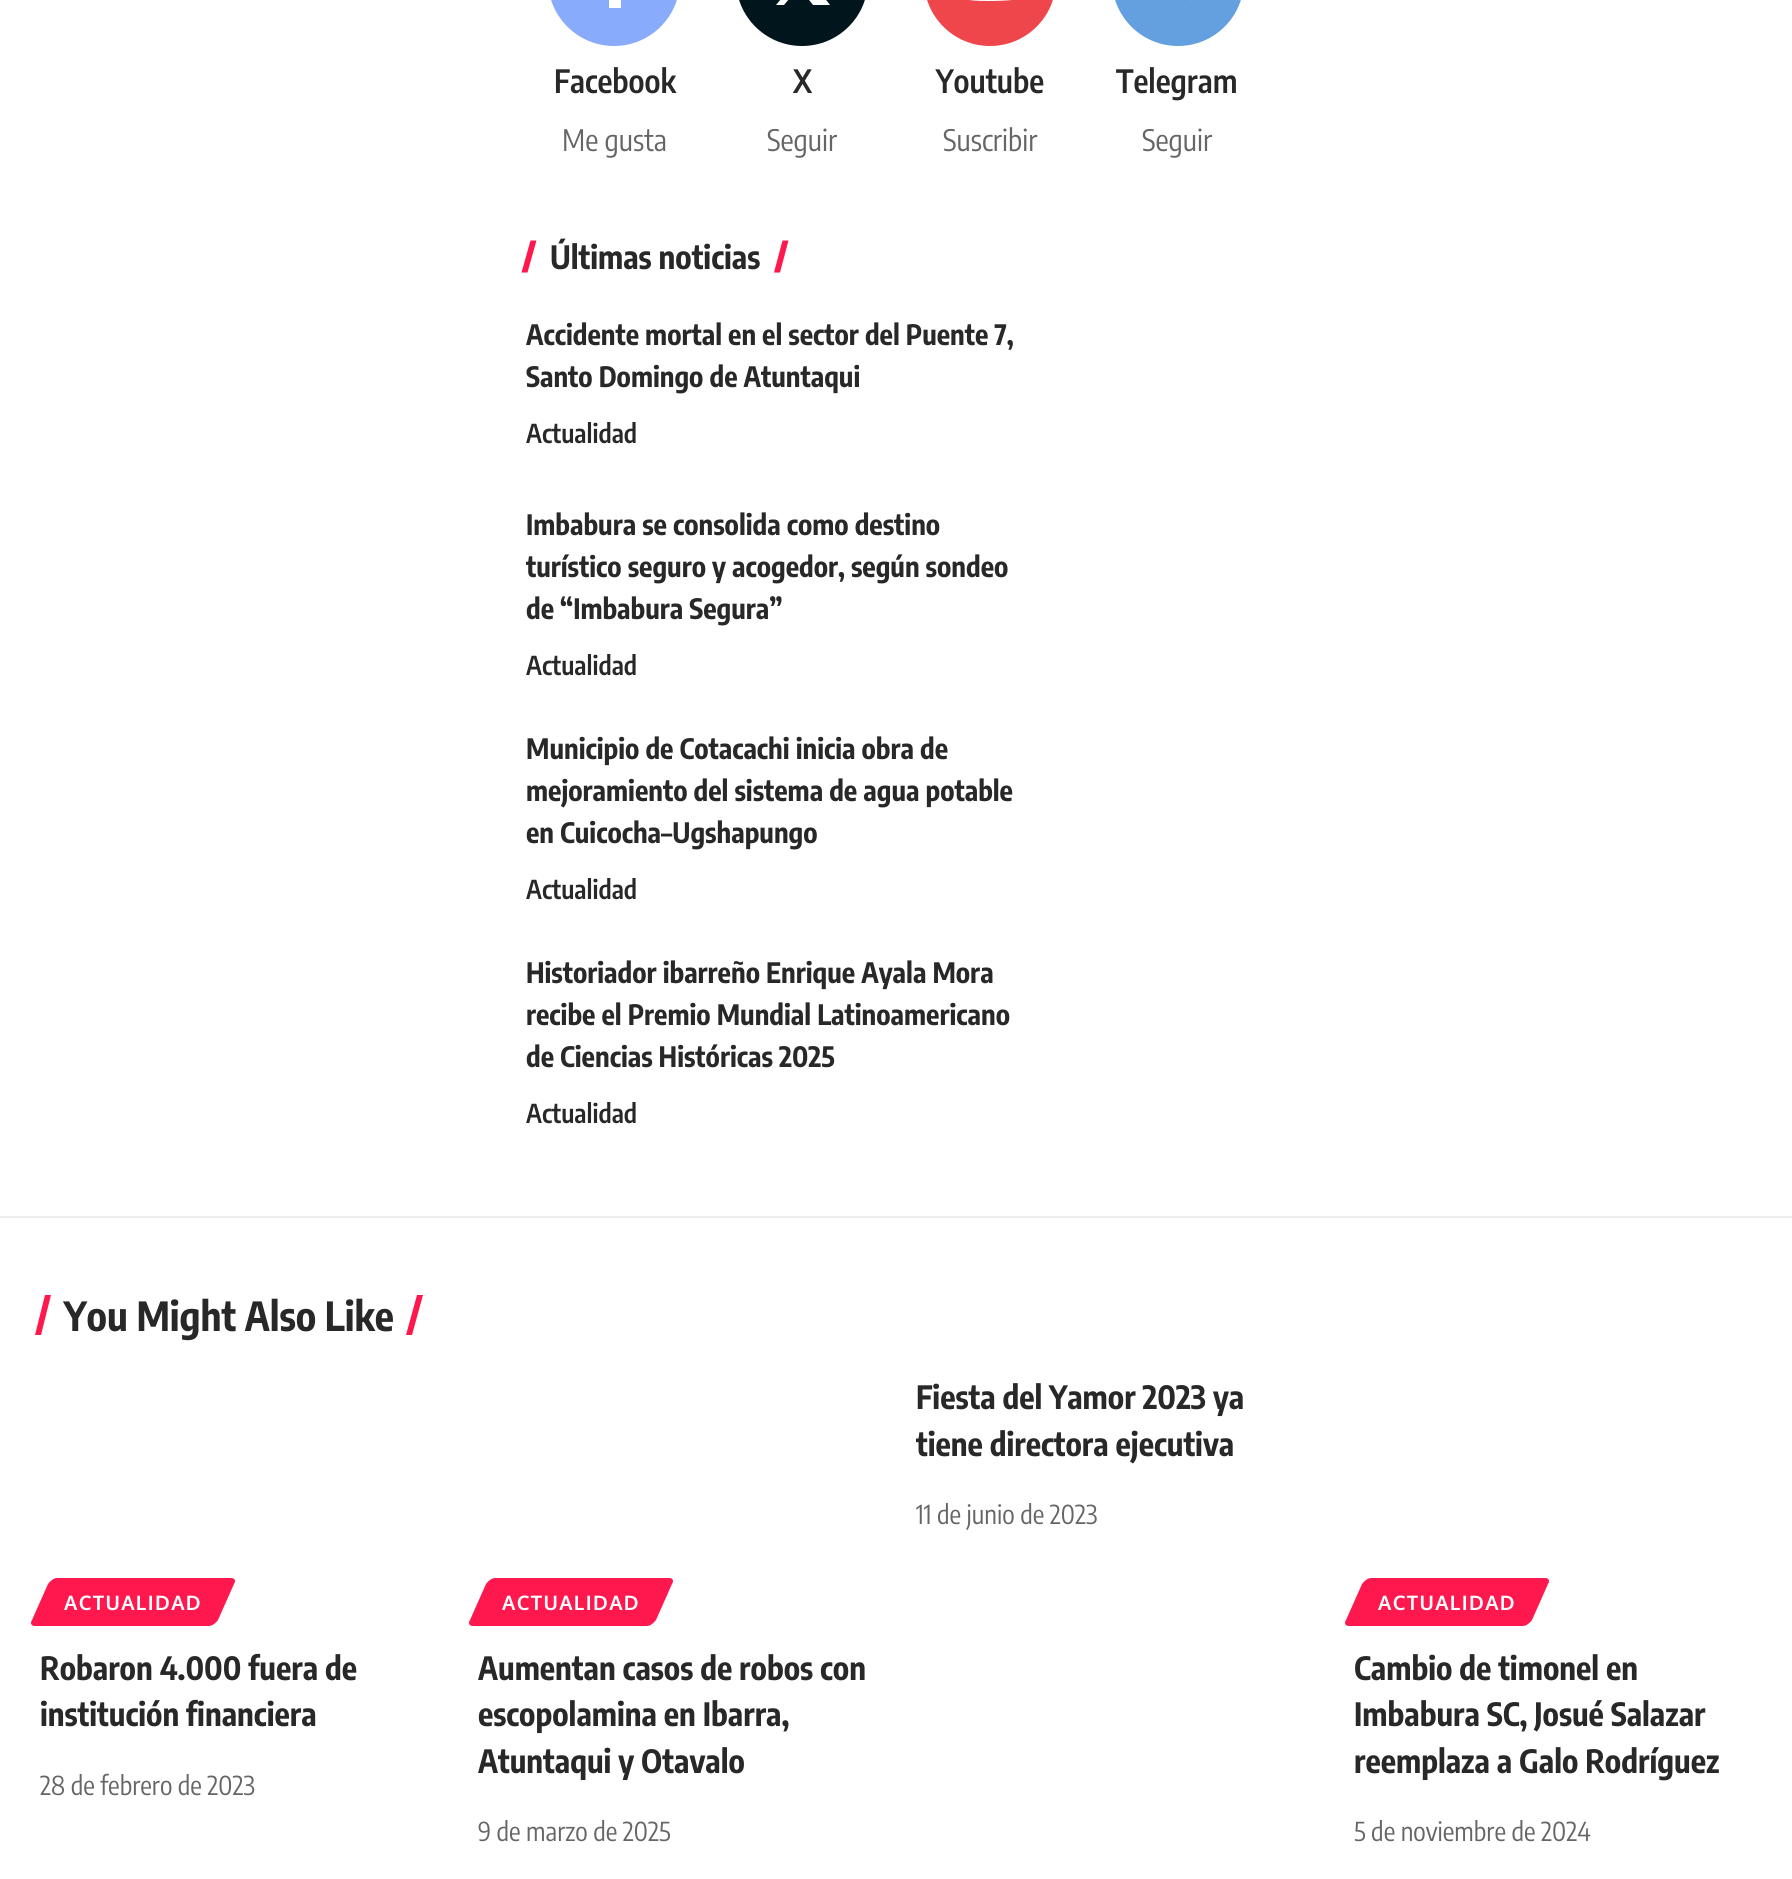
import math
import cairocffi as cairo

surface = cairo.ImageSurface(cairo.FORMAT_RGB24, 1792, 1879)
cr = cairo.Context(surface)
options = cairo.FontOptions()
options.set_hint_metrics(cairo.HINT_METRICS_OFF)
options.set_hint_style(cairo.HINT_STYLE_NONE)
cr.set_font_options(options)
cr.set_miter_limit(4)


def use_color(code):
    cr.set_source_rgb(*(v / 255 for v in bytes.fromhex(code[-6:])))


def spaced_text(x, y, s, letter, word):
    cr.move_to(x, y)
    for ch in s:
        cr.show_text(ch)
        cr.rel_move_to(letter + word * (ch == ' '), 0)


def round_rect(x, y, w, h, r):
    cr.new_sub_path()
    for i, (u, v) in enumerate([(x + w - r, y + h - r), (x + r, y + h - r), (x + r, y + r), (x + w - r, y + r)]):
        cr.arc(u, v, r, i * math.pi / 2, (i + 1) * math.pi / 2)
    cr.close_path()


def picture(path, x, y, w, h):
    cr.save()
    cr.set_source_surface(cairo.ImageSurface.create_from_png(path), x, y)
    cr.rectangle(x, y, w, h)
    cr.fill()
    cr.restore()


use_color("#ffffff")
cr.paint()
use_color("#89abfc")
round_rect(548, -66, 132, 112, 66)
cr.fill()
use_color("#ffffff")
cr.rectangle(609, 0, 12, 8)
cr.fill()
cr.select_font_face("Encode Sans Condensed SemiBold")
cr.set_font_size(32)
use_color("#282828")
cr.move_to(554, 93)
cr.show_text("Facebook")
cr.select_font_face("Encode Sans Condensed")
cr.set_font_size(29.5)
use_color("#666666")
cr.move_to(562, 151)
cr.show_text("Me gusta")
use_color("#00151c")
round_rect(736, -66, 132, 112, 66)
cr.fill()
use_color("#ffffff")
cr.new_path()
cr.move_to(818, -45)
cr.line_to(826, -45)
cr.line_to(808, -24)
cr.line_to(830, 5)
cr.line_to(813, 5)
cr.line_to(799, -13)
cr.line_to(784, 5)
cr.line_to(776, 5)
cr.line_to(795, -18)
cr.line_to(775, -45)
cr.line_to(792, -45)
cr.line_to(804, -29)
cr.close_path()
cr.move_to(815, 0)
cr.line_to(820, 0)
cr.line_to(789, -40)
cr.line_to(784, -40)
cr.close_path()
cr.fill()
cr.select_font_face("Encode Sans Condensed SemiBold")
cr.set_font_size(32)
use_color("#282828")
cr.move_to(793, 93)
cr.show_text("X")
cr.select_font_face("Encode Sans Condensed")
cr.set_font_size(29.5)
use_color("#666666")
cr.move_to(767, 151)
cr.show_text("Seguir")
use_color("#ef464b")
round_rect(924, -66, 132, 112, 66)
cr.fill()
use_color("#ffffff")
cr.new_path()
cr.move_to(1018, -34)
cr.curve_to(1018, -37, 1016, -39, 1014, -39)
cr.curve_to(1008, -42, 974, -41, 967, -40)
cr.line_to(963, -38)
cr.curve_to(958, -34, 959, -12, 961, -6)
cr.curve_to(962, -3, 963, -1, 965, -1)
cr.curve_to(971, 2, 1005, 1, 1012, 0)
cr.line_to(1016, -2)
cr.curve_to(1021, -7, 1020, -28, 1018, -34)
cr.close_path()
cr.move_to(983, -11)
cr.line_to(983, -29)
cr.line_to(999, -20)
cr.close_path()
cr.fill()
cr.select_font_face("Encode Sans Condensed SemiBold")
cr.set_font_size(32)
use_color("#282828")
cr.move_to(936, 93)
cr.show_text("Youtube")
cr.select_font_face("Encode Sans Condensed")
cr.set_font_size(29.5)
use_color("#666666")
cr.move_to(943, 151)
cr.show_text("Suscribir")
use_color("#649fdf")
round_rect(1112, -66, 132, 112, 66)
cr.fill()
picture("img1.png", 1190, 0, 2, 1)
cr.select_font_face("Encode Sans Condensed SemiBold")
cr.set_font_size(32)
use_color("#282828")
cr.move_to(1116, 93)
cr.show_text("Telegram")
cr.select_font_face("Encode Sans Condensed")
cr.set_font_size(29.5)
use_color("#666666")
cr.move_to(1142, 151)
cr.show_text("Seguir")
cr.select_font_face("Encode Sans Condensed", cairo.FONT_SLANT_NORMAL, cairo.FONT_WEIGHT_BOLD)
cr.set_font_size(32)
use_color("#282828")
cr.move_to(550, 269)
cr.show_text("Últimas noticias")
use_color("#ff184e")
cr.new_path()
cr.move_to(782.5, 240.5)
cr.line_to(788.5, 240.5)
cr.line_to(780, 272.5)
cr.line_to(774, 272.5)
cr.close_path()
cr.fill()
cr.new_path()
cr.move_to(530.5, 240.5)
cr.line_to(536.5, 240.5)
cr.line_to(527.5, 272.5)
cr.line_to(521.5, 272.5)
cr.close_path()
cr.fill()
cr.set_font_size(28)
use_color("#282828")
cr.move_to(526, 345)
cr.show_text("Accidente mortal en el sector del Puente 7,")
cr.move_to(526, 387)
cr.show_text("Santo Domingo de Atuntaqui")
cr.select_font_face("Encode Sans Condensed SemiBold")
cr.set_font_size(26)
cr.move_to(526, 443)
cr.show_text("Actualidad")
cr.select_font_face("Encode Sans Condensed", cairo.FONT_SLANT_NORMAL, cairo.FONT_WEIGHT_BOLD)
cr.set_font_size(28)
cr.move_to(526, 535)
cr.show_text("Imbabura se consolida como destino")
cr.move_to(526, 577)
cr.show_text("turístico seguro y acogedor, según sondeo")
cr.move_to(526, 619)
cr.show_text("de “Imbabura Segura”")
cr.select_font_face("Encode Sans Condensed SemiBold")
cr.set_font_size(26)
cr.move_to(526, 675)
cr.show_text("Actualidad")
cr.select_font_face("Encode Sans Condensed", cairo.FONT_SLANT_NORMAL, cairo.FONT_WEIGHT_BOLD)
cr.set_font_size(28)
cr.move_to(526, 759)
cr.show_text("Municipio de Cotacachi inicia obra de")
cr.move_to(526, 801)
cr.show_text("mejoramiento del sistema de agua potable")
cr.move_to(526, 843)
cr.show_text("en Cuicocha–Ugshapungo")
cr.select_font_face("Encode Sans Condensed SemiBold")
cr.set_font_size(26)
cr.move_to(526, 899)
cr.show_text("Actualidad")
cr.select_font_face("Encode Sans Condensed", cairo.FONT_SLANT_NORMAL, cairo.FONT_WEIGHT_BOLD)
cr.set_font_size(28)
cr.move_to(526, 983)
cr.show_text("Historiador ibarreño Enrique Ayala Mora")
cr.move_to(526, 1025)
cr.show_text("recibe el Premio Mundial Latinoamericano")
cr.move_to(526, 1067)
cr.show_text("de Ciencias Históricas 2025")
cr.select_font_face("Encode Sans Condensed SemiBold")
cr.set_font_size(26)
cr.move_to(526, 1123)
cr.show_text("Actualidad")
use_color("#ededed")
cr.rectangle(0, 1216, 1792, 2)
cr.fill()
use_color("#ff184e")
cr.new_path()
cr.move_to(417, 1295)
cr.line_to(423, 1295)
cr.line_to(412, 1335)
cr.line_to(406, 1335)
cr.close_path()
cr.fill()
cr.new_path()
cr.move_to(45, 1295)
cr.line_to(51, 1295)
cr.line_to(41, 1335)
cr.line_to(35, 1335)
cr.close_path()
cr.fill()
cr.select_font_face("Encode Sans Condensed", cairo.FONT_SLANT_NORMAL, cairo.FONT_WEIGHT_BOLD)
cr.set_font_size(40)
use_color("#282828")
cr.move_to(64, 1331)
cr.show_text("You Might Also Like")
cr.set_font_size(32)
cr.move_to(916, 1409)
cr.show_text("Fiesta del Yamor 2023 ya")
cr.move_to(916, 1456)
cr.show_text("tiene directora ejecutiva")
cr.select_font_face("Encode Sans Condensed")
cr.set_font_size(26)
use_color("#666666")
cr.move_to(916, 1524)
cr.show_text("11 de junio de 2023")
use_color("#ff184e")
cr.new_path()
cr.move_to(57, 1578)
cr.line_to(231, 1578)
cr.curve_to(235, 1578, 236, 1581, 234, 1584)
cr.line_to(218, 1620)
cr.curve_to(216, 1623, 212, 1626, 209, 1626)
cr.line_to(35, 1626)
cr.curve_to(31, 1626, 30, 1623, 32, 1620)
cr.line_to(48, 1584)
cr.curve_to(50, 1581, 54, 1578, 57, 1578)
cr.close_path()
cr.fill()
cr.select_font_face("Oxygen", cairo.FONT_SLANT_NORMAL, cairo.FONT_WEIGHT_BOLD)
cr.set_font_size(20)
use_color("#ffffff")
spaced_text(64, 1610, "ACTUALIDAD", 1.4, 0)
cr.select_font_face("Encode Sans Condensed", cairo.FONT_SLANT_NORMAL, cairo.FONT_WEIGHT_BOLD)
cr.set_font_size(32)
use_color("#282828")
cr.move_to(40, 1680)
cr.show_text("Robaron 4.000 fuera de")
cr.move_to(40, 1726)
cr.show_text("institución financiera")
cr.select_font_face("Encode Sans Condensed")
cr.set_font_size(26)
use_color("#666666")
cr.move_to(40, 1795)
cr.show_text("28 de febrero de 2023")
use_color("#ff184e")
cr.new_path()
cr.move_to(495, 1578)
cr.line_to(669, 1578)
cr.curve_to(673, 1578, 674, 1581, 672, 1584)
cr.line_to(656, 1620)
cr.curve_to(654, 1623, 650, 1626, 647, 1626)
cr.line_to(473, 1626)
cr.curve_to(469, 1626, 468, 1623, 470, 1620)
cr.line_to(486, 1584)
cr.curve_to(488, 1581, 492, 1578, 495, 1578)
cr.close_path()
cr.fill()
cr.select_font_face("Oxygen", cairo.FONT_SLANT_NORMAL, cairo.FONT_WEIGHT_BOLD)
cr.set_font_size(20)
use_color("#ffffff")
spaced_text(502, 1610, "ACTUALIDAD", 1.4, 0)
cr.select_font_face("Encode Sans Condensed", cairo.FONT_SLANT_NORMAL, cairo.FONT_WEIGHT_BOLD)
cr.set_font_size(32)
use_color("#282828")
cr.move_to(478, 1680)
cr.show_text("Aumentan casos de robos con")
cr.move_to(478, 1726)
cr.show_text("escopolamina en Ibarra,")
cr.move_to(478, 1773)
cr.show_text("Atuntaqui y Otavalo")
cr.select_font_face("Encode Sans Condensed")
cr.set_font_size(26)
use_color("#666666")
cr.move_to(478, 1841)
cr.show_text("9 de marzo de 2025")
use_color("#ff184e")
cr.new_path()
cr.move_to(1371, 1578)
cr.line_to(1545, 1578)
cr.curve_to(1549, 1578, 1550, 1581, 1548, 1584)
cr.line_to(1532, 1620)
cr.curve_to(1530, 1623, 1526, 1626, 1523, 1626)
cr.line_to(1349, 1626)
cr.curve_to(1345, 1626, 1344, 1623, 1346, 1620)
cr.line_to(1362, 1584)
cr.curve_to(1364, 1581, 1368, 1578, 1371, 1578)
cr.close_path()
cr.fill()
cr.select_font_face("Oxygen", cairo.FONT_SLANT_NORMAL, cairo.FONT_WEIGHT_BOLD)
cr.set_font_size(20)
use_color("#ffffff")
spaced_text(1378, 1610, "ACTUALIDAD", 1.4, 0)
cr.select_font_face("Encode Sans Condensed", cairo.FONT_SLANT_NORMAL, cairo.FONT_WEIGHT_BOLD)
cr.set_font_size(32)
use_color("#282828")
cr.move_to(1354, 1680)
cr.show_text("Cambio de timonel en")
cr.move_to(1354, 1726)
cr.show_text("Imbabura SC, Josué Salazar")
cr.move_to(1354, 1773)
cr.show_text("reemplaza a Galo Rodríguez")
cr.select_font_face("Encode Sans Condensed")
cr.set_font_size(26)
use_color("#666666")
cr.move_to(1354, 1841)
cr.show_text("5 de noviembre de 2024")
surface.write_to_png("result.png")
